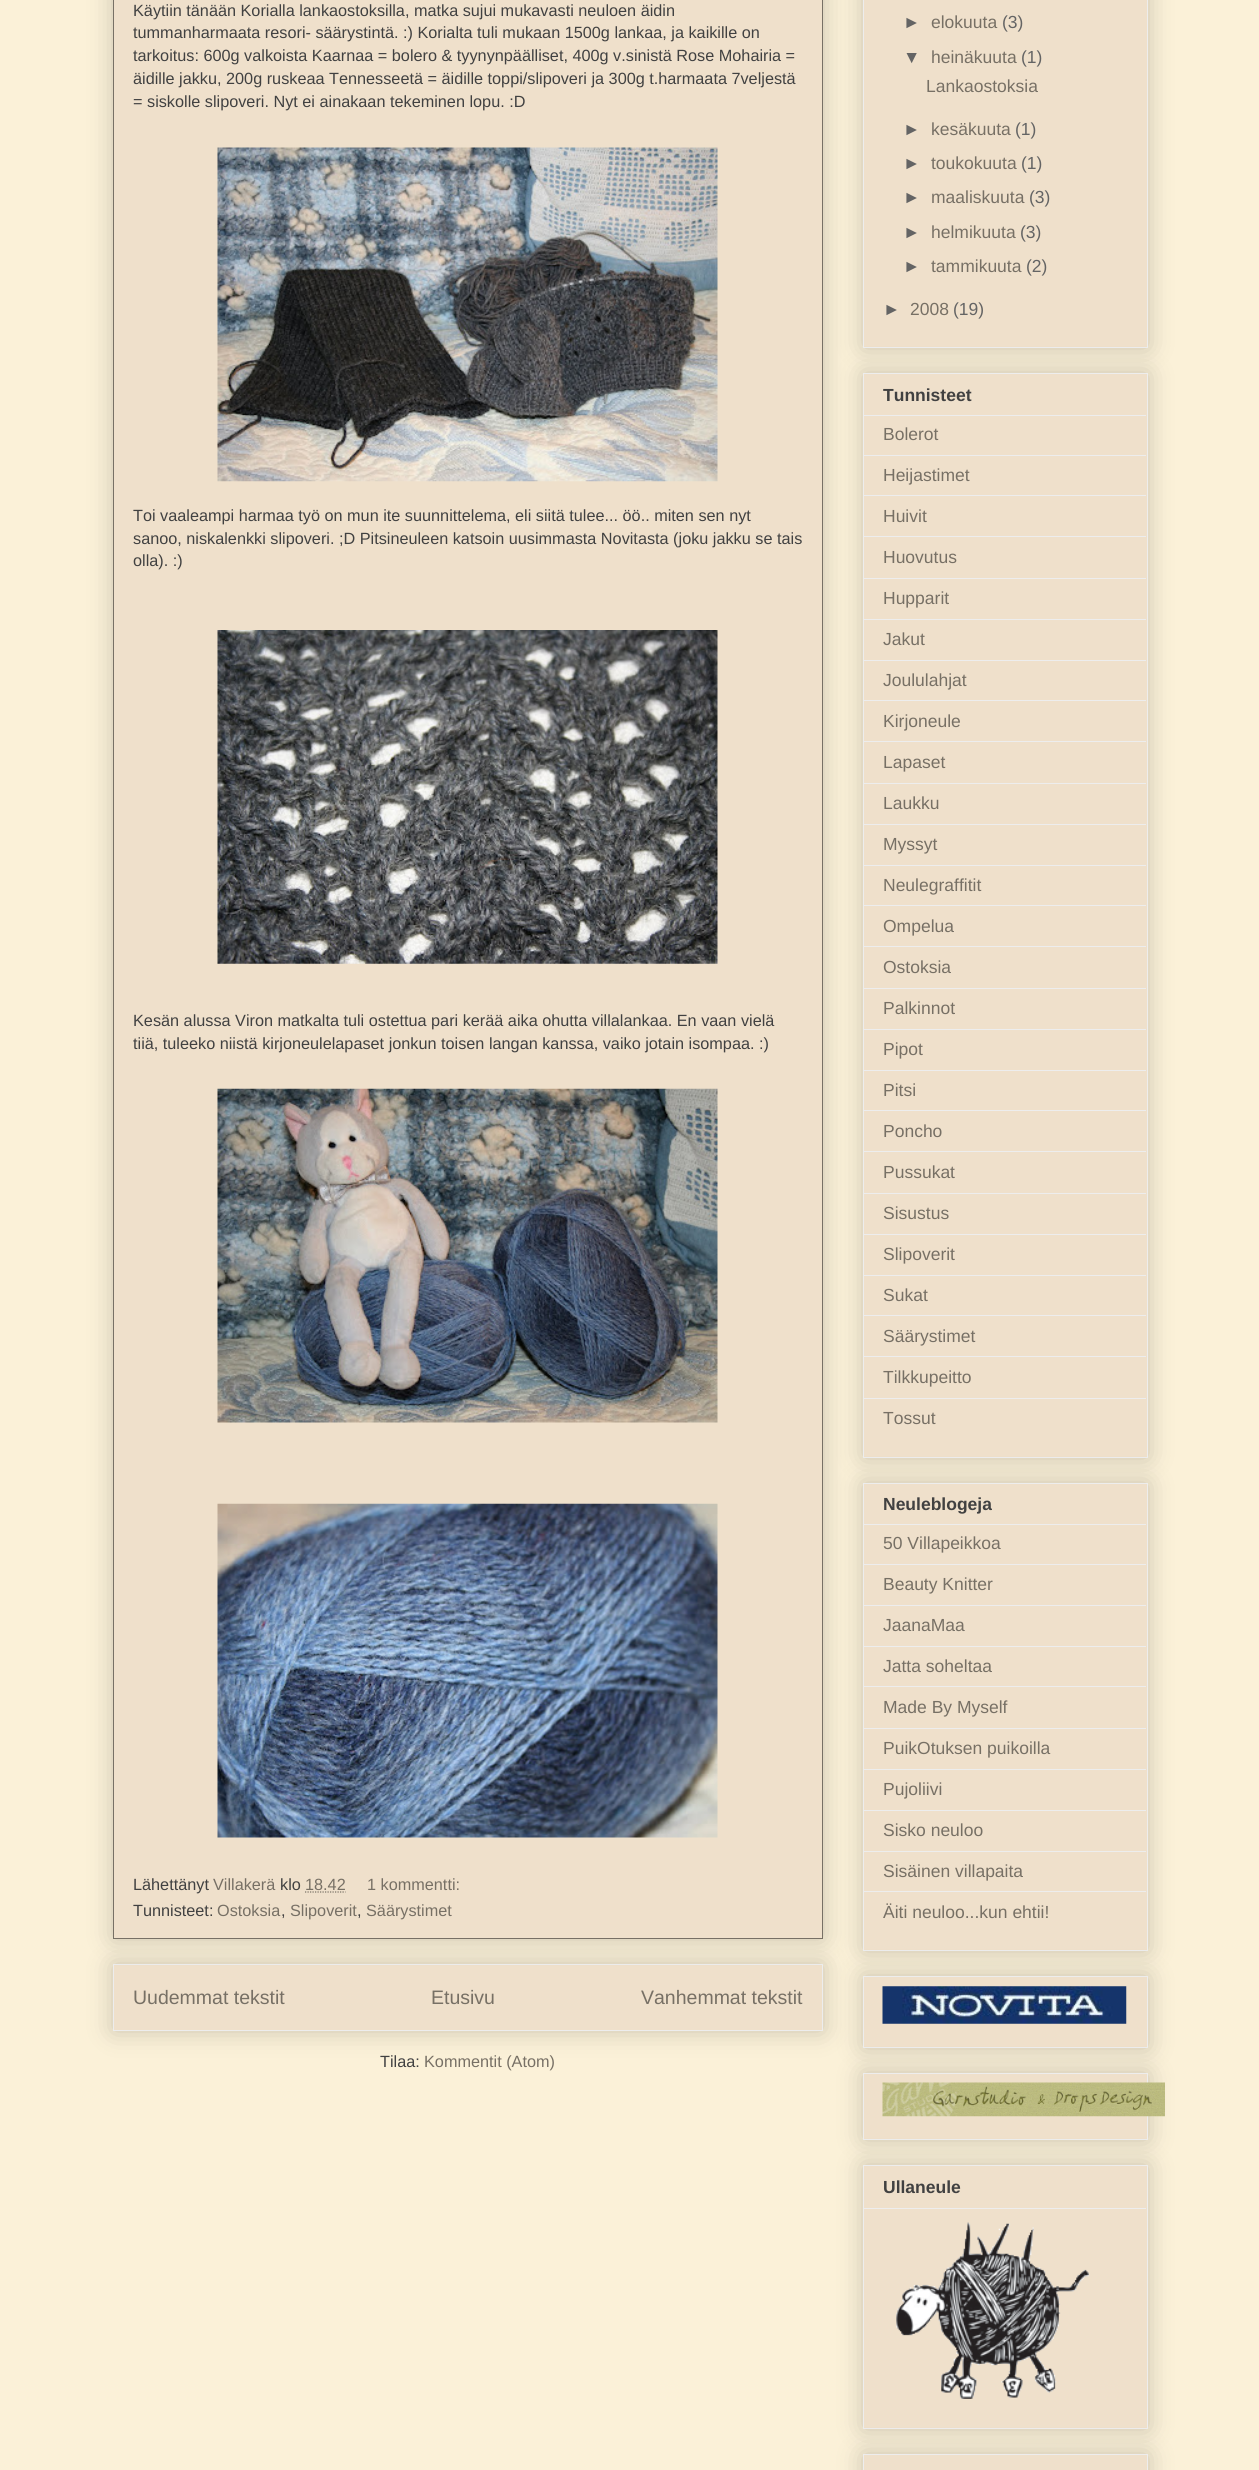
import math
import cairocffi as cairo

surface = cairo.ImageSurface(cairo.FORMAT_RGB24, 1259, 2470)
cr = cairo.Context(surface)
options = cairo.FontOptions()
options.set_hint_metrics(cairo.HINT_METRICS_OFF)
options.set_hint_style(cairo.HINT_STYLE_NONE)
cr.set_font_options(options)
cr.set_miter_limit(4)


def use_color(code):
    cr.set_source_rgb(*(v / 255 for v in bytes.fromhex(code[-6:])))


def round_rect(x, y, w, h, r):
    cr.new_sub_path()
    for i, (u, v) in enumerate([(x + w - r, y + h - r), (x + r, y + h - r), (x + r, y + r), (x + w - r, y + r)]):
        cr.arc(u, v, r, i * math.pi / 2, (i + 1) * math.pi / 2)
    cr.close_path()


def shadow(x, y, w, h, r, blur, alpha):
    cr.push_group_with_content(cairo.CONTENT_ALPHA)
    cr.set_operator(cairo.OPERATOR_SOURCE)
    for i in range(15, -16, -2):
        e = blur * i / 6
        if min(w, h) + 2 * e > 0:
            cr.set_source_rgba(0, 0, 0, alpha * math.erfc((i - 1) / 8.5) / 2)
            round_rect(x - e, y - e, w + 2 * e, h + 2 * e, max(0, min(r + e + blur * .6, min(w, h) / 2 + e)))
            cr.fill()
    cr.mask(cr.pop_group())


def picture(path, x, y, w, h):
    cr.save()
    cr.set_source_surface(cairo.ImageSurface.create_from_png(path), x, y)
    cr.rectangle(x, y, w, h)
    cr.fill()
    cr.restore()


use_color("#fbf1d8")
cr.paint()
use_color("#000000")
shadow(113, 1964, 710, 67, 0, 12.5, 0.2)
use_color("#efe0cb")
cr.rectangle(113.5, 1964.5, 709, 66)
cr.fill_preserve()
use_color("#ededed")
cr.set_line_width(1)
cr.stroke()
use_color("#000000")
shadow(113, -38, 710, 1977, 0, 12.5, 0.2)
use_color("#efe0cb")
cr.rectangle(113.5, -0.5, 709, 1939)
cr.fill_preserve()
use_color("#777065")
cr.stroke()
cr.select_font_face("Liberation Sans")
cr.set_font_size(16.25)
use_color("#414141")
cr.move_to(133, 16)
cr.show_text("Käytiin tänään Korialla lankaostoksilla, matka sujui mukavasti neuloen äidin")
cr.move_to(133, 38)
cr.show_text("tummanharmaata resori- säärystintä. :) Korialta tuli mukaan 1500g lankaa, ja kaikille on")
cr.move_to(133, 61)
cr.show_text("tarkoitus: 600g valkoista Kaarnaa = bolero & tyynynpäälliset, 400g v.sinistä Rose Mohairia =")
cr.move_to(133, 84)
cr.show_text("äidille jakku, 200g ruskeaa Tennesseetä = äidille toppi/slipoveri ja 300g t.harmaata 7veljestä")
cr.move_to(133, 107)
cr.show_text("= siskolle slipoveri. Nyt ei ainakaan tekeminen lopu. :D")
picture("img1.png", 217, 147, 501, 335)
cr.move_to(133, 521)
cr.show_text("Toi vaaleampi harmaa työ on mun ite suunnittelema, eli siitä tulee... öö.. miten sen nyt")
cr.move_to(133, 544)
cr.show_text("sanoo, niskalenkki slipoveri. ;D Pitsineuleen katsoin uusimmasta Novitasta (joku jakku se tais")
cr.move_to(133, 566)
cr.show_text("olla). :)")
picture("img2.png", 217, 630, 501, 334)
cr.move_to(133, 1026)
cr.show_text("Kesän alussa Viron matkalta tuli ostettua pari kerää aika ohutta villalankaa. En vaan vielä")
cr.move_to(133, 1049)
cr.show_text("tiiä, tuleeko niistä kirjoneulelapaset jonkun toisen langan kanssa, vaiko jotain isompaa. :)")
picture("img3.png", 217, 1088, 501, 335)
picture("img4.png", 217, 1503, 501, 335)
cr.move_to(133, 1890)
cr.show_text("Lähettänyt")
use_color("#777065")
cr.move_to(213, 1890)
cr.show_text("Villakerä")
use_color("#414141")
cr.move_to(280, 1890)
cr.show_text("klo")
use_color("#777065")
cr.move_to(305, 1890)
cr.show_text("18.42")
cr.new_path()
cr.move_to(305, 1892)
cr.line_to(345.5, 1892)
cr.set_line_width(1.2)
cr.set_dash([1.25, 1.25])
cr.stroke()
cr.move_to(367, 1890)
cr.show_text("1 kommentti:")
use_color("#414141")
cr.move_to(133, 1916)
cr.show_text("Tunnisteet:")
use_color("#777065")
cr.move_to(217, 1916)
cr.show_text("Ostoksia")
use_color("#414141")
cr.move_to(281, 1916)
cr.show_text(",")
use_color("#777065")
cr.move_to(290, 1916)
cr.show_text("Slipoverit")
use_color("#414141")
cr.move_to(357, 1916)
cr.show_text(",")
use_color("#777065")
cr.move_to(366, 1916)
cr.show_text("Säärystimet")
cr.set_font_size(19.5)
cr.move_to(133, 2004)
cr.show_text("Uudemmat tekstit")
cr.move_to(431, 2004)
cr.show_text("Etusivu")
cr.move_to(641, 2004)
cr.show_text("Vanhemmat tekstit")
cr.set_font_size(16.25)
use_color("#414141")
cr.move_to(380, 2067)
cr.show_text("Tilaa:")
use_color("#777065")
cr.move_to(424, 2067)
cr.show_text("Kommentit (Atom)")
use_color("#000000")
shadow(863, -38, 285, 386, 0, 12.5, 0.2)
use_color("#efe0cb")
cr.rectangle(863.5, -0.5, 284, 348)
cr.fill_preserve()
use_color("#ededed")
cr.set_line_width(1)
cr.set_dash([])
cr.stroke()
cr.set_font_size(17.5)
use_color("#646464")
cr.move_to(903, 28)
cr.show_text("►")
use_color("#777065")
cr.move_to(931, 28)
cr.show_text("elokuuta")
use_color("#646464")
cr.move_to(1002, 28)
cr.show_text("(3)")
cr.move_to(903, 63)
cr.show_text("▼")
use_color("#777065")
cr.move_to(931, 63)
cr.show_text("heinäkuuta")
use_color("#646464")
cr.move_to(1021, 63)
cr.show_text("(1)")
use_color("#777065")
cr.move_to(926, 92)
cr.show_text("Lankaostoksia")
use_color("#646464")
cr.move_to(903, 135)
cr.show_text("►")
use_color("#777065")
cr.move_to(931, 135)
cr.show_text("kesäkuuta")
use_color("#646464")
cr.move_to(1015, 135)
cr.show_text("(1)")
cr.move_to(903, 169)
cr.show_text("►")
use_color("#777065")
cr.move_to(931, 169)
cr.show_text("toukokuuta")
use_color("#646464")
cr.move_to(1021, 169)
cr.show_text("(1)")
cr.move_to(903, 203)
cr.show_text("►")
use_color("#777065")
cr.move_to(931, 203)
cr.show_text("maaliskuuta")
use_color("#646464")
cr.move_to(1029, 203)
cr.show_text("(3)")
cr.move_to(903, 238)
cr.show_text("►")
use_color("#777065")
cr.move_to(931, 238)
cr.show_text("helmikuuta")
use_color("#646464")
cr.move_to(1020, 238)
cr.show_text("(3)")
cr.move_to(903, 272)
cr.show_text("►")
use_color("#777065")
cr.move_to(931, 272)
cr.show_text("tammikuuta")
use_color("#646464")
cr.move_to(1026, 272)
cr.show_text("(2)")
cr.move_to(883, 315)
cr.show_text("►")
use_color("#777065")
cr.move_to(910, 315)
cr.show_text("2008")
use_color("#646464")
cr.move_to(953, 315)
cr.show_text("(19)")
use_color("#000000")
shadow(863, 373, 285, 1085, 0, 12.5, 0.2)
use_color("#efe0cb")
cr.rectangle(863.5, 373.5, 284, 1084)
cr.fill_preserve()
use_color("#ededed")
cr.stroke()
cr.select_font_face("Liberation Sans", cairo.FONT_SLANT_NORMAL, cairo.FONT_WEIGHT_BOLD)
use_color("#414141")
cr.move_to(883, 401)
cr.show_text("Tunnisteet")
use_color("#ededed")
cr.rectangle(864, 415, 282, 1)
cr.fill()
cr.select_font_face("Liberation Sans")
use_color("#777065")
cr.move_to(883, 440)
cr.show_text("Bolerot")
use_color("#ededed")
cr.rectangle(864, 455, 282, 1)
cr.fill()
use_color("#777065")
cr.move_to(883, 481)
cr.show_text("Heijastimet")
use_color("#ededed")
cr.rectangle(864, 495, 282, 1)
cr.fill()
use_color("#777065")
cr.move_to(883, 522)
cr.show_text("Huivit")
use_color("#ededed")
cr.rectangle(864, 536, 282, 1)
cr.fill()
use_color("#777065")
cr.move_to(883, 563)
cr.show_text("Huovutus")
use_color("#ededed")
cr.rectangle(864, 578, 282, 1)
cr.fill()
use_color("#777065")
cr.move_to(883, 604)
cr.show_text("Hupparit")
use_color("#ededed")
cr.rectangle(864, 619, 282, 1)
cr.fill()
use_color("#777065")
cr.move_to(883, 645)
cr.show_text("Jakut")
use_color("#ededed")
cr.rectangle(864, 660, 282, 1)
cr.fill()
use_color("#777065")
cr.move_to(883, 686)
cr.show_text("Joululahjat")
use_color("#ededed")
cr.rectangle(864, 700, 282, 1)
cr.fill()
use_color("#777065")
cr.move_to(883, 727)
cr.show_text("Kirjoneule")
use_color("#ededed")
cr.rectangle(864, 741, 282, 1)
cr.fill()
use_color("#777065")
cr.move_to(883, 768)
cr.show_text("Lapaset")
use_color("#ededed")
cr.rectangle(864, 783, 282, 1)
cr.fill()
use_color("#777065")
cr.move_to(883, 809)
cr.show_text("Laukku")
use_color("#ededed")
cr.rectangle(864, 824, 282, 1)
cr.fill()
use_color("#777065")
cr.move_to(883, 850)
cr.show_text("Myssyt")
use_color("#ededed")
cr.rectangle(864, 865, 282, 1)
cr.fill()
use_color("#777065")
cr.move_to(883, 891)
cr.show_text("Neulegraffitit")
use_color("#ededed")
cr.rectangle(864, 905, 282, 1)
cr.fill()
use_color("#777065")
cr.move_to(883, 932)
cr.show_text("Ompelua")
use_color("#ededed")
cr.rectangle(864, 946, 282, 1)
cr.fill()
use_color("#777065")
cr.move_to(883, 973)
cr.show_text("Ostoksia")
use_color("#ededed")
cr.rectangle(864, 988, 282, 1)
cr.fill()
use_color("#777065")
cr.move_to(883, 1014)
cr.show_text("Palkinnot")
use_color("#ededed")
cr.rectangle(864, 1029, 282, 1)
cr.fill()
use_color("#777065")
cr.move_to(883, 1055)
cr.show_text("Pipot")
use_color("#ededed")
cr.rectangle(864, 1070, 282, 1)
cr.fill()
use_color("#777065")
cr.move_to(883, 1096)
cr.show_text("Pitsi")
use_color("#ededed")
cr.rectangle(864, 1110, 282, 1)
cr.fill()
use_color("#777065")
cr.move_to(883, 1137)
cr.show_text("Poncho")
use_color("#ededed")
cr.rectangle(864, 1151, 282, 1)
cr.fill()
use_color("#777065")
cr.move_to(883, 1178)
cr.show_text("Pussukat")
use_color("#ededed")
cr.rectangle(864, 1193, 282, 1)
cr.fill()
use_color("#777065")
cr.move_to(883, 1219)
cr.show_text("Sisustus")
use_color("#ededed")
cr.rectangle(864, 1234, 282, 1)
cr.fill()
use_color("#777065")
cr.move_to(883, 1260)
cr.show_text("Slipoverit")
use_color("#ededed")
cr.rectangle(864, 1275, 282, 1)
cr.fill()
use_color("#777065")
cr.move_to(883, 1301)
cr.show_text("Sukat")
use_color("#ededed")
cr.rectangle(864, 1315, 282, 1)
cr.fill()
use_color("#777065")
cr.move_to(883, 1342)
cr.show_text("Säärystimet")
use_color("#ededed")
cr.rectangle(864, 1356, 282, 1)
cr.fill()
use_color("#777065")
cr.move_to(883, 1383)
cr.show_text("Tilkkupeitto")
use_color("#ededed")
cr.rectangle(864, 1398, 282, 1)
cr.fill()
use_color("#777065")
cr.move_to(883, 1424)
cr.show_text("Tossut")
use_color("#000000")
shadow(863, 1483, 285, 468, 0, 12.5, 0.2)
use_color("#efe0cb")
cr.rectangle(863.5, 1483.5, 284, 467)
cr.fill_preserve()
use_color("#ededed")
cr.stroke()
cr.select_font_face("Liberation Sans", cairo.FONT_SLANT_NORMAL, cairo.FONT_WEIGHT_BOLD)
use_color("#414141")
cr.move_to(883, 1510)
cr.show_text("Neuleblogeja")
use_color("#ededed")
cr.rectangle(864, 1524, 282, 1)
cr.fill()
cr.select_font_face("Liberation Sans")
use_color("#777065")
cr.move_to(883, 1549)
cr.show_text("50 Villapeikkoa")
use_color("#ededed")
cr.rectangle(864, 1564, 282, 1)
cr.fill()
use_color("#777065")
cr.move_to(883, 1590)
cr.show_text("Beauty Knitter")
use_color("#ededed")
cr.rectangle(864, 1605, 282, 1)
cr.fill()
use_color("#777065")
cr.move_to(883, 1631)
cr.show_text("JaanaMaa")
use_color("#ededed")
cr.rectangle(864, 1646, 282, 1)
cr.fill()
use_color("#777065")
cr.move_to(883, 1672)
cr.show_text("Jatta soheltaa")
use_color("#ededed")
cr.rectangle(864, 1686, 282, 1)
cr.fill()
use_color("#777065")
cr.move_to(883, 1713)
cr.show_text("Made By Myself")
use_color("#ededed")
cr.rectangle(864, 1728, 282, 1)
cr.fill()
use_color("#777065")
cr.move_to(883, 1754)
cr.show_text("PuikOtuksen puikoilla")
use_color("#ededed")
cr.rectangle(864, 1769, 282, 1)
cr.fill()
use_color("#777065")
cr.move_to(883, 1795)
cr.show_text("Pujoliivi")
use_color("#ededed")
cr.rectangle(864, 1810, 282, 1)
cr.fill()
use_color("#777065")
cr.move_to(883, 1836)
cr.show_text("Sisko neuloo")
use_color("#ededed")
cr.rectangle(864, 1851, 282, 1)
cr.fill()
use_color("#777065")
cr.move_to(883, 1877)
cr.show_text("Sisäinen villapaita")
use_color("#ededed")
cr.rectangle(864, 1891, 282, 1)
cr.fill()
use_color("#777065")
cr.move_to(883, 1918)
cr.show_text("Äiti neuloo...kun ehtii!")
use_color("#000000")
shadow(863, 1976, 285, 72, 0, 12.5, 0.2)
use_color("#efe0cb")
cr.rectangle(863.5, 1976.5, 284, 71)
cr.fill_preserve()
use_color("#ededed")
cr.stroke()
picture("img5.png", 882, 1986, 245, 38)
use_color("#000000")
shadow(863, 2073, 285, 67, 0, 12.5, 0.2)
use_color("#efe0cb")
cr.rectangle(863.5, 2073.5, 284, 66)
cr.fill_preserve()
use_color("#ededed")
cr.stroke()
picture("img6.png", 882, 2082, 283, 35)
use_color("#000000")
shadow(863, 2165, 285, 264, 0, 12.5, 0.2)
use_color("#efe0cb")
cr.rectangle(863.5, 2165.5, 284, 263)
cr.fill_preserve()
use_color("#ededed")
cr.stroke()
cr.select_font_face("Liberation Sans", cairo.FONT_SLANT_NORMAL, cairo.FONT_WEIGHT_BOLD)
use_color("#414141")
cr.move_to(883, 2193)
cr.show_text("Ullaneule")
use_color("#ededed")
cr.rectangle(864, 2208, 282, 1)
cr.fill()
picture("img7.png", 896, 2222, 193, 177)
use_color("#000000")
shadow(863, 2454, 285, 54, 0, 12.5, 0.2)
use_color("#efe0cb")
cr.rectangle(863.5, 2454.5, 284, 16)
cr.fill_preserve()
use_color("#ededed")
cr.stroke()
surface.write_to_png("result.png")
